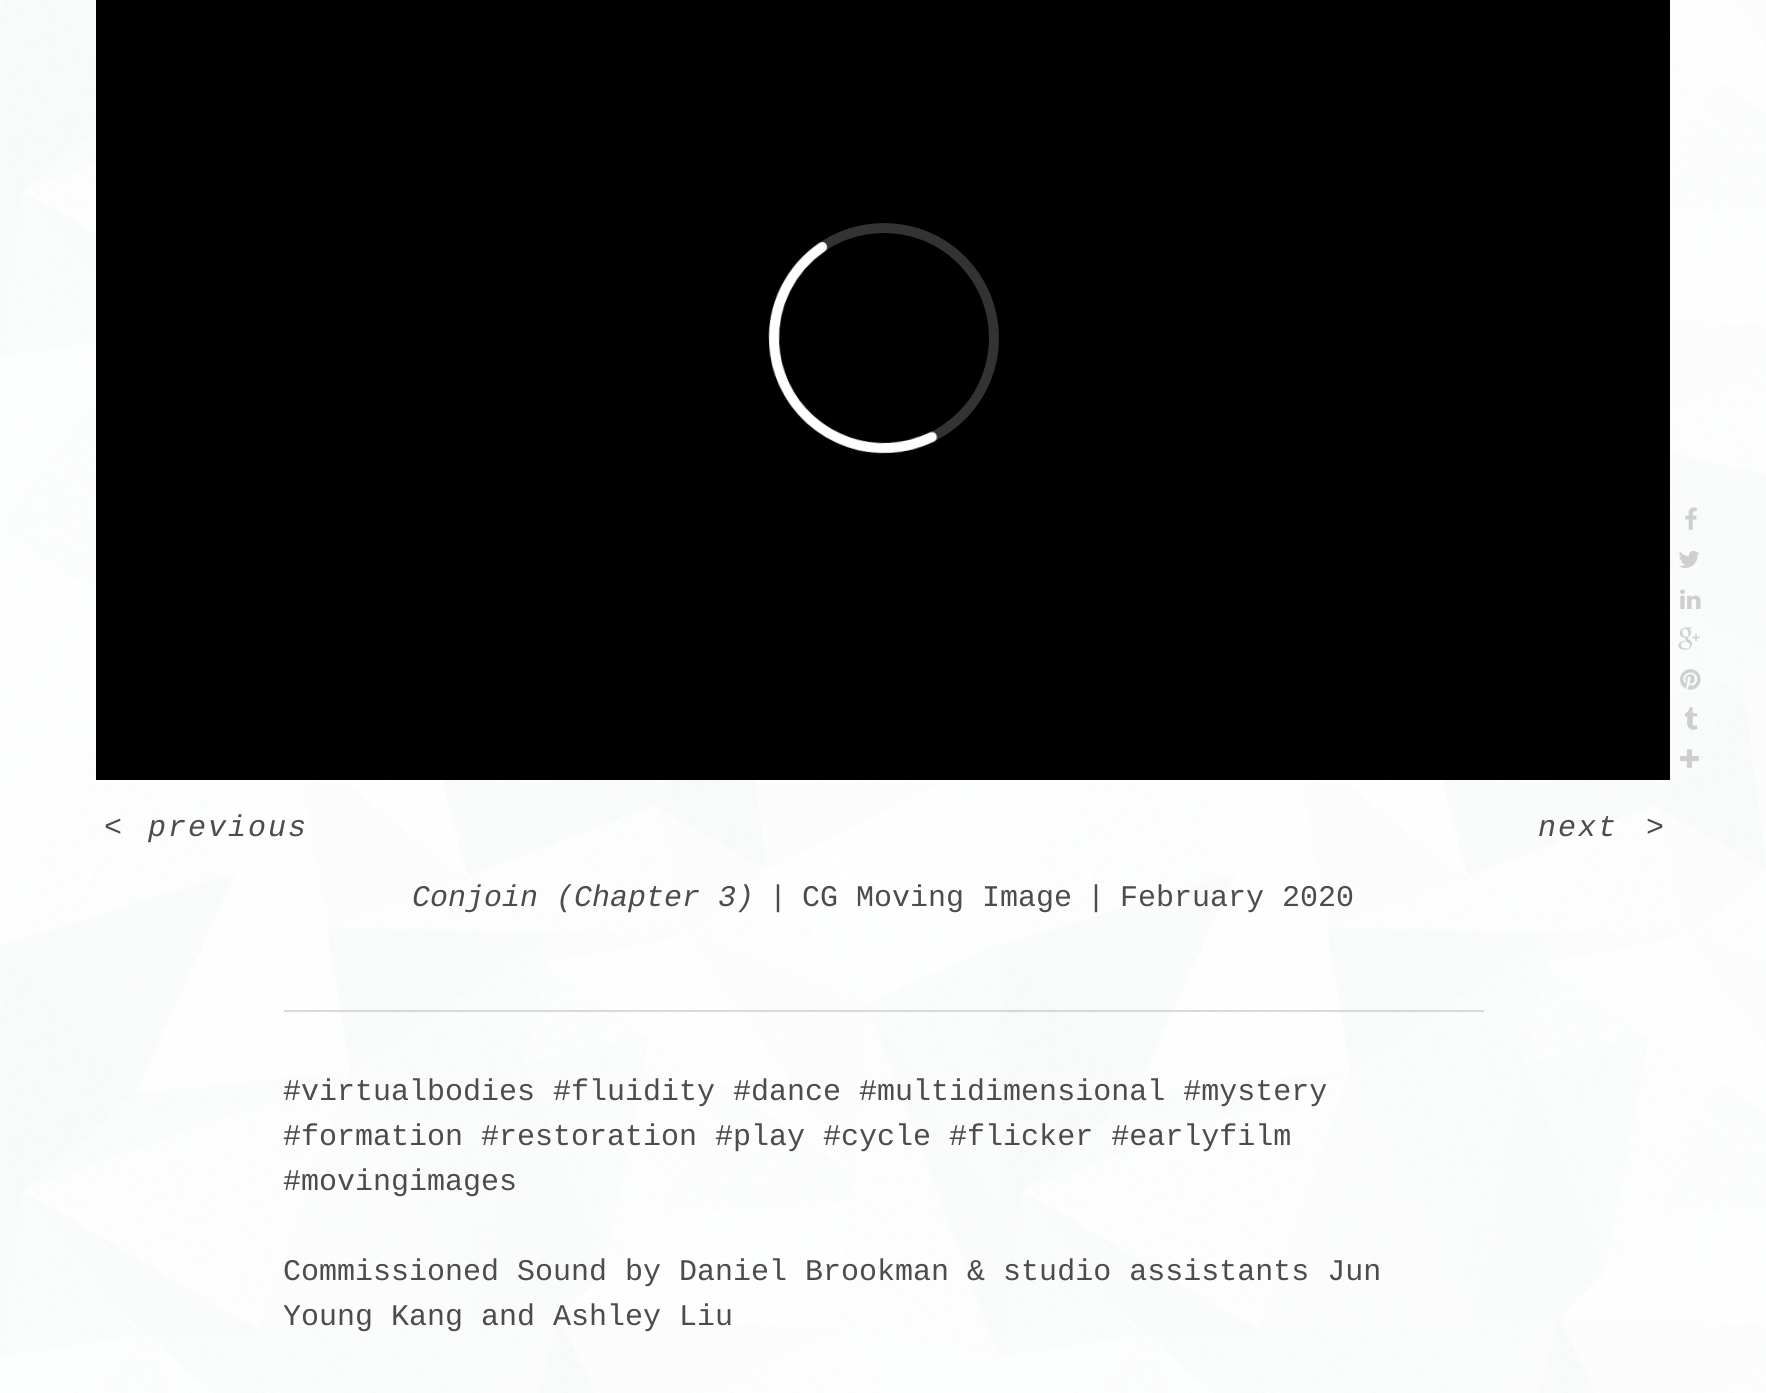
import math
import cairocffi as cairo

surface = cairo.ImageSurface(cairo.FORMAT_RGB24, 1766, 1393)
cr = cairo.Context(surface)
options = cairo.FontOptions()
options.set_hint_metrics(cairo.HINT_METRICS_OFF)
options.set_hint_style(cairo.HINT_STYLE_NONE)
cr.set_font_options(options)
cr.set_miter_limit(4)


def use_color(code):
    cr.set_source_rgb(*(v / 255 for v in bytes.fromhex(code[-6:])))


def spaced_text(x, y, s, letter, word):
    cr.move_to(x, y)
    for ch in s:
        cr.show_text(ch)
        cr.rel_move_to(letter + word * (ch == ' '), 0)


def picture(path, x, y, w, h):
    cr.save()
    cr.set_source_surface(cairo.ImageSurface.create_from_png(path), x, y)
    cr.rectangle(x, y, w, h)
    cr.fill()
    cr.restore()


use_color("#ffffff")
cr.paint()
picture("img1.png", 0, 0, 1766, 1393)
picture("img2.png", 96, 0, 1574, 780)
picture("img3.png", 1685, 507, 12, 23)
picture("img4.png", 1679, 550, 21, 18)
picture("img5.png", 1680, 589, 21, 20)
picture("img6.png", 1678, 627, 22, 23)
picture("img7.png", 1680, 669, 21, 21)
picture("img8.png", 1684, 707, 14, 23)
picture("img9.png", 1680, 749, 19, 19)
cr.select_font_face("Liberation Mono", cairo.FONT_SLANT_ITALIC)
cr.set_font_size(30)
use_color("#4d4b4b")
spaced_text(104, 836, "<", 2, 0)
spaced_text(148, 836, "previous", 2, 0)
spaced_text(1538, 836, "next", 2, 0)
spaced_text(1646, 836, ">", 2, 0)
cr.move_to(412, 906)
cr.show_text("Conjoin (Chapter 3)")
cr.select_font_face("Liberation Mono")
cr.move_to(769, 906)
cr.show_text("|")
cr.move_to(802, 906)
cr.show_text("CG Moving Image")
cr.move_to(1087, 906)
cr.show_text("|")
cr.move_to(1120, 906)
cr.show_text("February 2020")
cr.set_source_rgba(0.302, 0.294, 0.294, 0.2)
cr.rectangle(284, 1010, 1200, 2)
cr.fill()
use_color("#4d4b4b")
cr.move_to(283, 1100)
cr.show_text("#virtualbodies #fluidity #dance #multidimensional #mystery")
cr.move_to(283, 1145)
cr.show_text("#formation #restoration #play #cycle #flicker #earlyfilm")
cr.move_to(283, 1190)
cr.show_text("#movingimages")
cr.move_to(283, 1280)
cr.show_text("Commissioned Sound by Daniel Brookman & studio assistants Jun")
cr.move_to(283, 1325)
cr.show_text("Young Kang and Ashley Liu")
surface.write_to_png("result.png")
